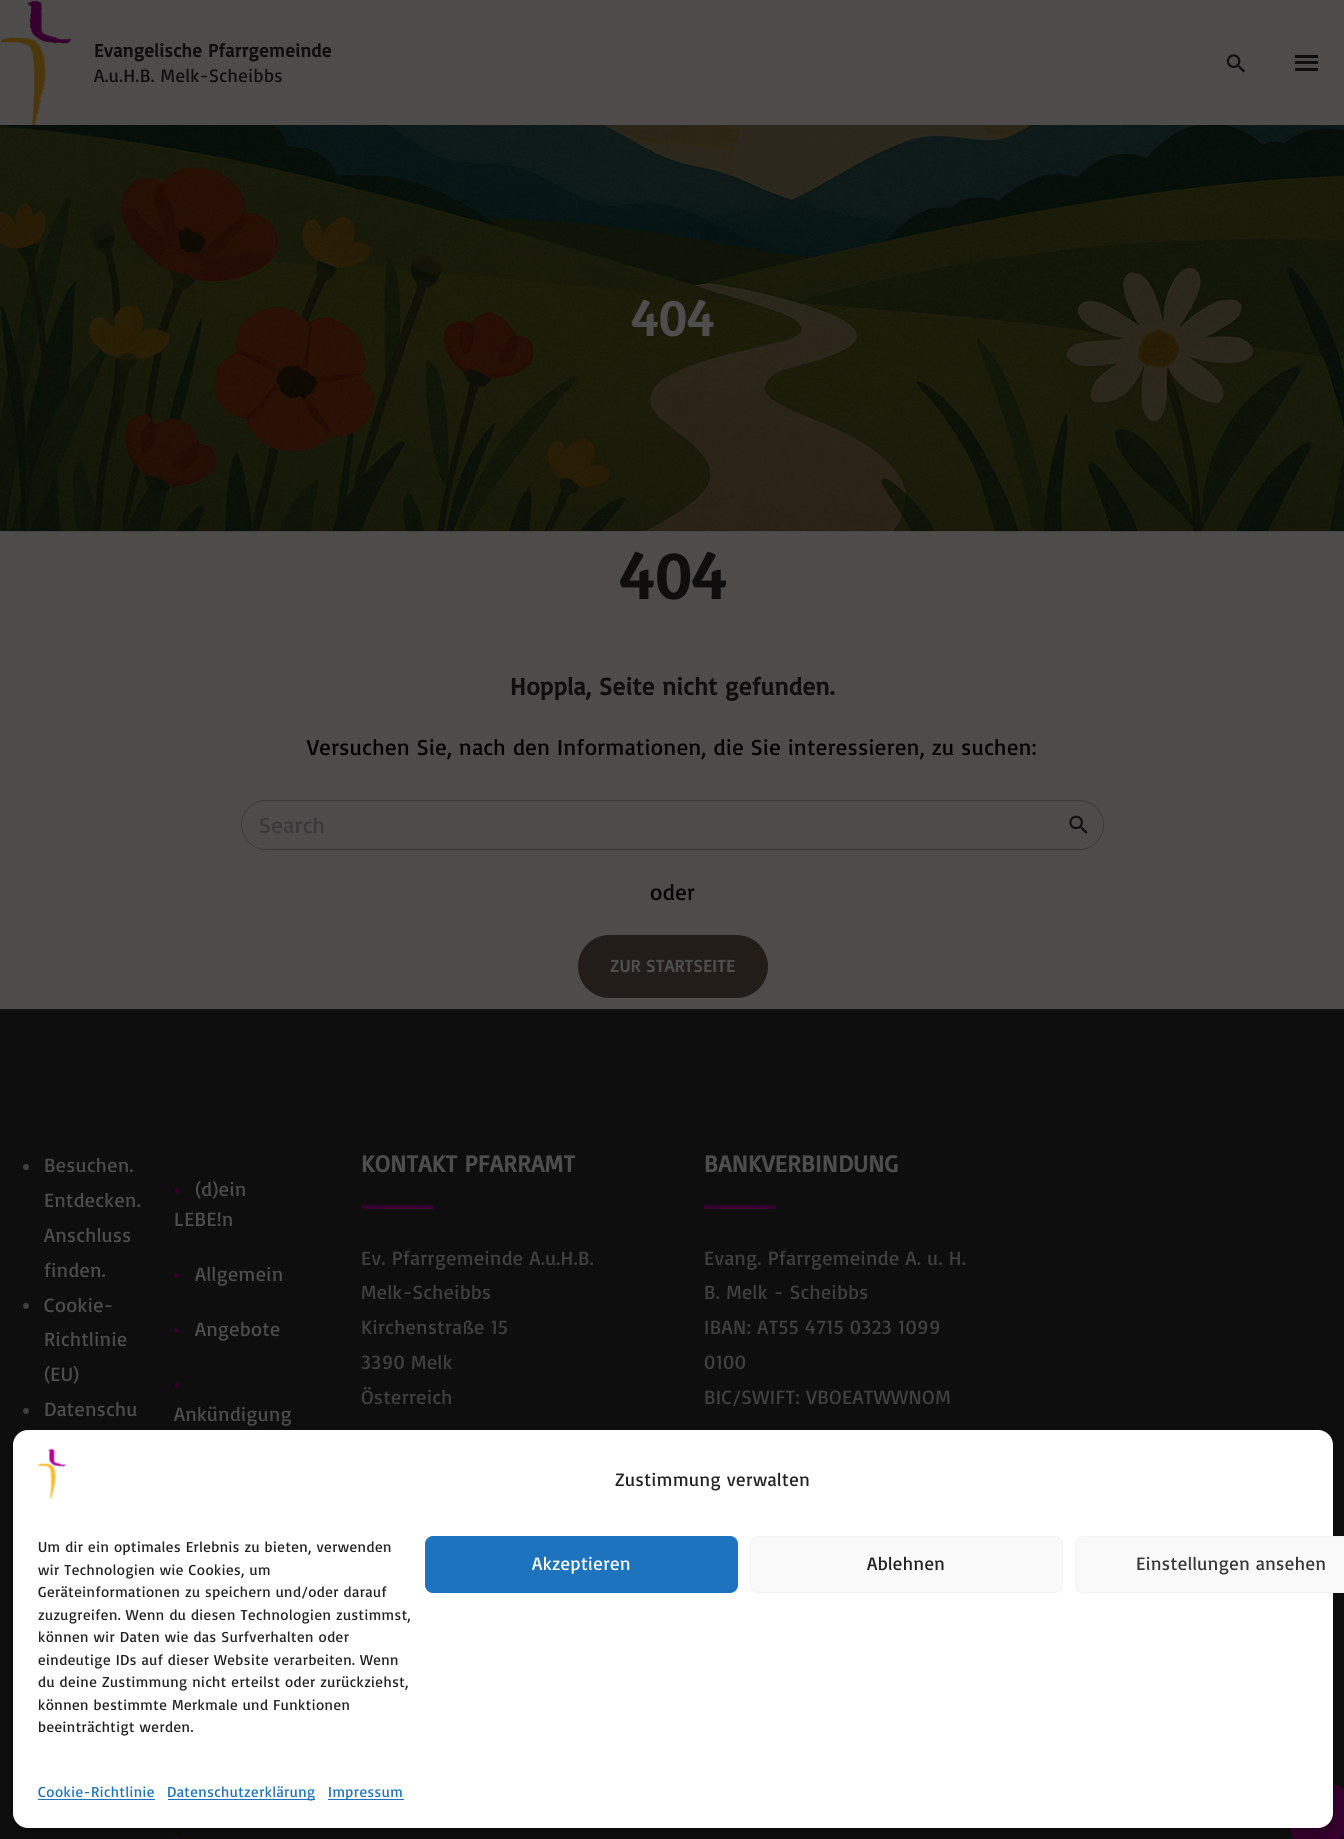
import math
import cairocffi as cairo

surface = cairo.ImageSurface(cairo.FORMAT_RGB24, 1344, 1839)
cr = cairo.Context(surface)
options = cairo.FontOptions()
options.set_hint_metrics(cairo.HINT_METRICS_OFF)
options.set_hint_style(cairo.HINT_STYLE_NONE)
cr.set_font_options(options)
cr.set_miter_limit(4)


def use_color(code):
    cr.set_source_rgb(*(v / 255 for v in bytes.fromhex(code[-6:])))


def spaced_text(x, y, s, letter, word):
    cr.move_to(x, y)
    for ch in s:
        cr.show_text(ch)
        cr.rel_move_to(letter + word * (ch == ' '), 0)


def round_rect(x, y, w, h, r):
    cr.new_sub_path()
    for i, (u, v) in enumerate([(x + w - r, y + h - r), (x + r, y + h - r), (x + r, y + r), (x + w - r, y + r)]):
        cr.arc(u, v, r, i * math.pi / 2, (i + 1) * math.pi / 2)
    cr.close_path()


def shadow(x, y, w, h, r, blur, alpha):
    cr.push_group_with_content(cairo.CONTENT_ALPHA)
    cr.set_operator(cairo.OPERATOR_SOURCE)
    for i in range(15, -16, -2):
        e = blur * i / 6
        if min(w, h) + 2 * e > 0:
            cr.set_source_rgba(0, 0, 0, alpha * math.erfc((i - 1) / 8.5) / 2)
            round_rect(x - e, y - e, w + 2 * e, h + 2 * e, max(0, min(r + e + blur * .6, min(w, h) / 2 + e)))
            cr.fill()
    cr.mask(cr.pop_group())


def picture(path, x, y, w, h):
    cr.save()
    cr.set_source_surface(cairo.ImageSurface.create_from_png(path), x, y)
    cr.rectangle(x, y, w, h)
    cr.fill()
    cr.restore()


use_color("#4d4c4b")
cr.paint()
picture("img1.png", 0, 125, 1344, 407)
picture("img2.png", 0, 0, 72, 125)
cr.select_font_face("Basic", cairo.FONT_SLANT_NORMAL, cairo.FONT_WEIGHT_BOLD)
cr.set_font_size(18.75)
use_color("#0e0e0e")
spaced_text(94, 57, "Evangelische Pfarrgemeinde", 0.45, 0)
cr.select_font_face("Basic")
spaced_text(94, 82, "A.u.H.B. Melk-Scheibbs", 0.45, 0)
picture("img3.png", 1226, 54, 19, 19)
cr.rectangle(1295, 61, 23, 3)
cr.fill()
cr.rectangle(1295, 55, 23, 3)
cr.fill()
cr.rectangle(1295, 68, 23, 3)
cr.fill()
cr.select_font_face("Basic", cairo.FONT_SLANT_NORMAL, cairo.FONT_WEIGHT_BOLD)
cr.set_font_size(50)
use_color("#4d4d4d")
spaced_text(631, 336, "404", 0.45, 0)
cr.set_font_size(65)
use_color("#0e0e0e")
spaced_text(619, 599, "404", 0.45, 0)
cr.set_font_size(24.75)
spaced_text(510, 695, "Hoppla, Seite nicht gefunden.", 0.45, 0)
cr.select_font_face("Basic")
cr.set_font_size(22.5)
use_color("#000000")
spaced_text(307, 755, "Versuchen Sie, nach den Informationen, die Sie interessieren, zu suchen:", 0.45, 0)
round_rect(241.5, 800.5, 862, 49, 24.5)
use_color("#3b3b3b")
cr.set_line_width(1)
cr.stroke()
use_color("#383838")
spaced_text(259, 833, "Search", 0.45, 0)
picture("img4.png", 1069, 815, 19, 19)
use_color("#000000")
spaced_text(650, 900, "oder", 0.45, 0)
use_color("#221d19")
round_rect(578, 935, 190, 63, 31.5)
cr.fill()
cr.select_font_face("Basic", cairo.FONT_SLANT_NORMAL, cairo.FONT_WEIGHT_BOLD)
cr.set_font_size(17.5)
use_color("#4d4d4d")
spaced_text(610, 972, "ZUR STARTSEITE", 0.45, 0)
use_color("#0e0e0e")
cr.rectangle(0, 1010, 1344, 829)
cr.fill()
use_color("#171717")
cr.rectangle(0, 1009, 1344, 1)
cr.fill()
use_color("#404040")
cr.arc(26, 1167, 3, 0, 2 * math.pi)
cr.fill()
cr.select_font_face("Basic")
cr.set_font_size(20)
use_color("#4d4d4d")
spaced_text(44, 1172, "Besuchen.", 0.45, 0)
spaced_text(44, 1207, "Entdecken.", 0.45, 0)
spaced_text(44, 1242, "Anschluss", 0.45, 0)
spaced_text(44, 1277, "finden.", 0.45, 0)
use_color("#404040")
cr.new_path()
cr.arc(26, 1306, 3, 0, 2 * math.pi)
cr.fill()
use_color("#4d4d4d")
spaced_text(44, 1312, "Cookie-", 0.45, 0)
spaced_text(44, 1346, "Richtlinie", 0.45, 0)
spaced_text(44, 1381, "(EU)", 0.45, 0)
use_color("#404040")
cr.new_path()
cr.arc(26, 1411, 3, 0, 2 * math.pi)
cr.fill()
use_color("#4d4d4d")
spaced_text(44, 1416, "Datenschu", 0.45, 0)
use_color("#35002d")
cr.new_path()
cr.arc(176.5, 1190.5, 2.5, 0, 2 * math.pi)
cr.fill()
use_color("#4d4d4d")
spaced_text(195, 1196, "(d)ein", 0.45, 0)
spaced_text(174, 1226, "LEBE!n", 0.45, 0)
use_color("#35002d")
cr.new_path()
cr.arc(176.5, 1275.5, 2.5, 0, 2 * math.pi)
cr.fill()
use_color("#4d4d4d")
spaced_text(195, 1281, "Allgemein", 0.45, 0)
use_color("#35002d")
cr.new_path()
cr.arc(176.5, 1330.5, 2.5, 0, 2 * math.pi)
cr.fill()
use_color("#4d4d4d")
spaced_text(195, 1336, "Angebote", 0.45, 0)
use_color("#35002d")
cr.new_path()
cr.arc(176.5, 1385.5, 2.5, 0, 2 * math.pi)
cr.fill()
use_color("#4d4d4d")
spaced_text(174, 1421, "Ankündigung", 0.45, 0)
use_color("#35002d")
round_rect(174, 1838, 5, 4, 2.5)
cr.fill()
cr.select_font_face("Basic", cairo.FONT_SLANT_NORMAL, cairo.FONT_WEIGHT_BOLD)
cr.set_font_size(24)
use_color("#4d4d4d")
spaced_text(361, 1172, "KONTAKT PFARRAMT", 0.45, 0)
use_color("#35002d")
cr.rectangle(361, 1205, 73, 4)
cr.fill()
cr.select_font_face("Basic")
cr.set_font_size(20)
use_color("#404040")
spaced_text(361, 1265, "Ev. Pfarrgemeinde A.u.H.B.", 0.45, 0)
spaced_text(361, 1299, "Melk-Scheibbs", 0.45, 0)
spaced_text(361, 1334, "Kirchenstraße 15", 0.45, 0)
spaced_text(361, 1369, "3390 Melk", 0.45, 0)
spaced_text(361, 1404, "Österreich", 0.45, 0)
cr.select_font_face("Basic", cairo.FONT_SLANT_NORMAL, cairo.FONT_WEIGHT_BOLD)
cr.set_font_size(24)
use_color("#4d4d4d")
spaced_text(704, 1172, "BANKVERBINDUNG", 0.45, 0)
use_color("#35002d")
cr.rectangle(704, 1205, 72, 4)
cr.fill()
cr.select_font_face("Basic")
cr.set_font_size(20)
use_color("#404040")
spaced_text(704, 1265, "Evang. Pfarrgemeinde A. u. H.", 0.45, 0)
spaced_text(704, 1299, "B. Melk - Scheibbs", 0.45, 0)
spaced_text(704, 1334, "IBAN: AT55 4715 0323 1099", 0.45, 0)
spaced_text(704, 1369, "0100", 0.45, 0)
spaced_text(704, 1404, "BIC/SWIFT: VBOEATWWNOM", 0.45, 0)
use_color("#35002d")
round_rect(1290, 1785, 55, 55, 10)
cr.fill()
use_color("#000000")
shadow(13, 1438, 1320, 397, 15, 4, 0.23)
use_color("#ffffff")
round_rect(13, 1430, 1320, 398, 15)
cr.fill()
picture("img5.png", 37, 1448, 29, 51)
cr.set_font_size(18.75)
use_color("#222222")
spaced_text(615, 1486, "Zustimmung verwalten", 0.45, 0)
cr.set_font_size(15)
spaced_text(38, 1552, "Um dir ein optimales Erlebnis zu bieten, verwenden", 0.45, 0)
spaced_text(38, 1575, "wir Technologien wie Cookies, um", 0.45, 0)
spaced_text(38, 1597, "Geräteinformationen zu speichern und/oder darauf", 0.45, 0)
spaced_text(38, 1620, "zuzugreifen. Wenn du diesen Technologien zustimmst,", 0.45, 0)
spaced_text(38, 1642, "können wir Daten wie das Surfverhalten oder", 0.45, 0)
spaced_text(38, 1665, "eindeutige IDs auf dieser Website verarbeiten. Wenn", 0.45, 0)
spaced_text(38, 1687, "du deine Zustimmung nicht erteilst oder zurückziehst,", 0.45, 0)
spaced_text(38, 1710, "können bestimmte Merkmale und Funktionen", 0.45, 0)
spaced_text(38, 1732, "beeinträchtigt werden.", 0.45, 0)
use_color("#1e73be")
round_rect(425.5, 1536.5, 312, 56, 7.5)
cr.fill_preserve()
cr.stroke()
cr.set_font_size(18.75)
use_color("#ffffff")
spaced_text(532, 1570, "Akzeptieren", 0.4, 0)
use_color("#f9f9f9")
round_rect(750.5, 1536.5, 312, 56, 7.5)
cr.fill_preserve()
use_color("#f2f2f2")
cr.stroke()
use_color("#222222")
spaced_text(867, 1570, "Ablehnen", 0.4, 0)
use_color("#f9f9f9")
round_rect(1075.5, 1536.5, 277, 56, 7.5)
cr.fill_preserve()
use_color("#f2f2f2")
cr.stroke()
use_color("#383838")
spaced_text(1136, 1570, "Einstellungen ansehen", 0.4, 0)
cr.set_font_size(15)
use_color("#1e73be")
spaced_text(38, 1797, "Cookie-Richtlinie", 0.45, 0)
cr.rectangle(38, 1799, 117, 1)
cr.fill()
cr.rectangle(168, 1799, 147, 1)
cr.fill()
spaced_text(167, 1797, "Datenschutzerklärung", 0.45, 0)
cr.rectangle(328, 1799, 76, 1)
cr.fill()
spaced_text(328, 1797, "Impressum", 0.45, 0)
surface.write_to_png("result.png")
